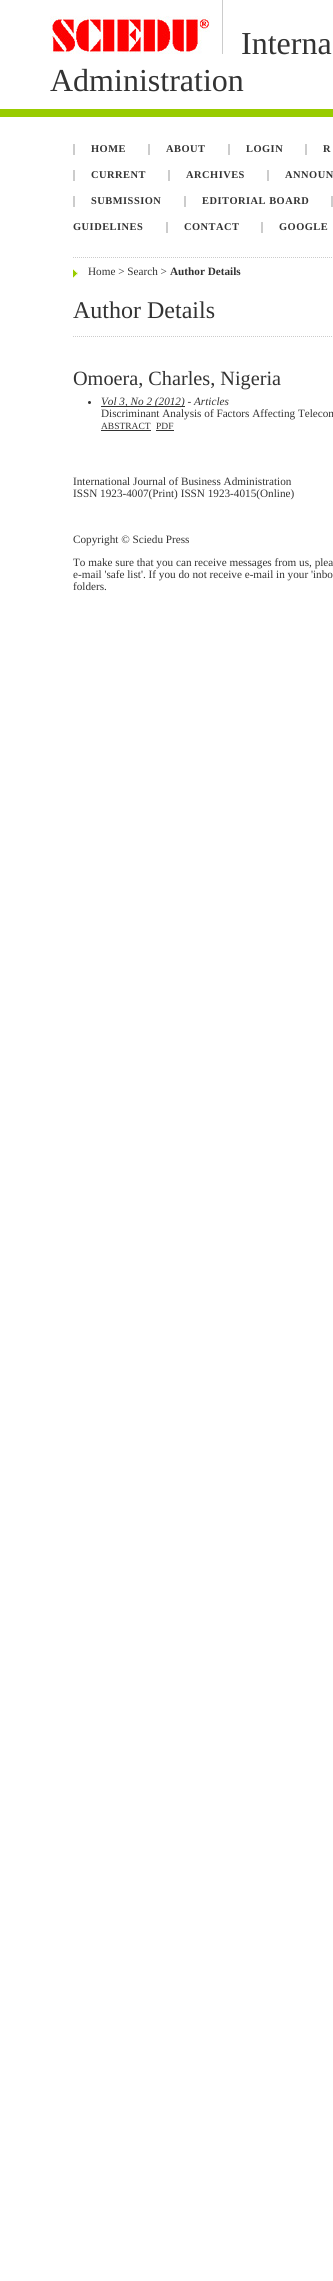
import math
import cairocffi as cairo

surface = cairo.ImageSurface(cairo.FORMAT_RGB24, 333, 2281)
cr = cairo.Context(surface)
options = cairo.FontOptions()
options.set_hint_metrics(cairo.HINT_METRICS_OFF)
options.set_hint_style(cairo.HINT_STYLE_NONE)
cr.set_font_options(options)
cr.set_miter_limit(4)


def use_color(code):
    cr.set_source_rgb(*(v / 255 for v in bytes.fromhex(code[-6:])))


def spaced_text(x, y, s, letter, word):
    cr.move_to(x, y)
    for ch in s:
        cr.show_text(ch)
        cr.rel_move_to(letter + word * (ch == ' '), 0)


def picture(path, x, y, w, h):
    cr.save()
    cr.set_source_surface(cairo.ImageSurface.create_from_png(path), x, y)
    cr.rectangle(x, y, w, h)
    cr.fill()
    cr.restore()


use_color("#ffffff")
cr.paint()
use_color("#99cc00")
cr.rectangle(0, 109, 333, 8)
cr.fill()
picture("img1.png", 50, 16, 160, 38)
use_color("#cccccc")
cr.rectangle(222, 0, 1, 54)
cr.fill()
cr.select_font_face("Liberation Serif")
cr.set_font_size(32)
use_color("#333333")
cr.move_to(241, 54)
cr.show_text("Interna")
cr.move_to(50, 91)
cr.show_text("Administration")
cr.select_font_face("Liberation Serif", cairo.FONT_SLANT_NORMAL, cairo.FONT_WEIGHT_BOLD)
cr.set_font_size(10.4)
spaced_text(91, 152, "HOME", 0.5, 0)
use_color("#cccccc")
cr.rectangle(73, 144, 2, 11)
cr.fill()
use_color("#333333")
spaced_text(166, 152, "ABOUT", 0.5, 0)
use_color("#cccccc")
cr.rectangle(148, 144, 2, 11)
cr.fill()
use_color("#333333")
spaced_text(246, 152, "LOGIN", 0.5, 0)
use_color("#cccccc")
cr.rectangle(228, 144, 2, 11)
cr.fill()
use_color("#333333")
spaced_text(323, 152, "R", 0.5, 0)
use_color("#cccccc")
cr.rectangle(305, 144, 2, 11)
cr.fill()
use_color("#333333")
spaced_text(91, 178, "CURRENT", 0.5, 0)
use_color("#cccccc")
cr.rectangle(73, 170, 2, 11)
cr.fill()
use_color("#333333")
spaced_text(186, 178, "ARCHIVES", 0.5, 0)
use_color("#cccccc")
cr.rectangle(168, 170, 2, 11)
cr.fill()
use_color("#333333")
spaced_text(285, 178, "ANNOUN", 0.5, 0)
use_color("#cccccc")
cr.rectangle(267, 170, 2, 11)
cr.fill()
use_color("#333333")
spaced_text(91, 204, "SUBMISSION", 0.5, 0)
use_color("#cccccc")
cr.rectangle(73, 196, 2, 11)
cr.fill()
use_color("#333333")
spaced_text(202, 204, "EDITORIAL BOARD", 0.5, 0)
use_color("#cccccc")
cr.rectangle(184, 196, 2, 11)
cr.fill()
cr.rectangle(331, 196, 2, 11)
cr.fill()
use_color("#333333")
spaced_text(73, 230, "GUIDELINES", 0.5, 0)
spaced_text(184, 230, "CONTACT", 0.5, 0)
use_color("#cccccc")
cr.rectangle(166, 222, 2, 11)
cr.fill()
use_color("#333333")
spaced_text(279, 230, "GOOGLE", 0.5, 0)
use_color("#cccccc")
cr.rectangle(261, 222, 2, 11)
cr.fill()
picture("img2.png", 73, 269, 5, 9)
cr.new_path()
cr.move_to(73, 257.5)
cr.line_to(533, 257.5)
cr.set_line_width(1)
cr.set_dash([1, 1])
cr.stroke()
cr.select_font_face("Liberation Serif")
cr.set_font_size(11.2)
use_color("#333333")
cr.move_to(88, 275)
cr.show_text("Home > Search >")
cr.select_font_face("Liberation Serif", cairo.FONT_SLANT_NORMAL, cairo.FONT_WEIGHT_BOLD)
cr.move_to(170, 275)
cr.show_text("Author Details")
cr.select_font_face("Liberation Serif")
cr.set_font_size(24)
cr.move_to(73, 318)
cr.show_text("Author Details")
cr.new_path()
cr.move_to(73, 336.5)
cr.line_to(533, 336.5)
use_color("#cccccc")
cr.stroke()
cr.set_font_size(20.25)
use_color("#333333")
cr.move_to(73, 385)
cr.show_text("Omoera, Charles, Nigeria")
cr.new_path()
cr.arc(89.5, 402.5, 1.5, 0, 2 * math.pi)
cr.fill()
cr.rectangle(101, 406, 84, 1)
cr.fill()
cr.select_font_face("Liberation Serif", cairo.FONT_SLANT_ITALIC)
cr.set_font_size(11.2)
cr.move_to(101, 405)
cr.show_text("Vol 3, No 2 (2012) - Articles")
cr.select_font_face("Liberation Serif")
cr.move_to(101, 417)
cr.show_text("Discriminant Analysis of Factors Affecting Telecom")
cr.set_font_size(9.5)
cr.move_to(101, 429)
cr.show_text("ABSTRACT")
cr.rectangle(101, 430, 50, 1)
cr.fill()
cr.move_to(156, 429)
cr.show_text("PDF")
cr.rectangle(156, 430, 18, 1)
cr.fill()
cr.set_font_size(11.2)
cr.move_to(73, 485)
cr.show_text("International Journal of Business Administration")
cr.move_to(73, 497)
cr.show_text("ISSN 1923-4007(Print) ISSN 1923-4015(Online)")
cr.move_to(73, 543)
cr.show_text("Copyright © Sciedu Press")
cr.move_to(73, 566)
cr.show_text("To make sure that you can receive messages from us, plea")
cr.move_to(73, 578)
cr.show_text("e-mail 'safe list'. If you do not receive e-mail in your 'inbo")
cr.move_to(73, 590)
cr.show_text("folders.")
surface.write_to_png("result.png")
